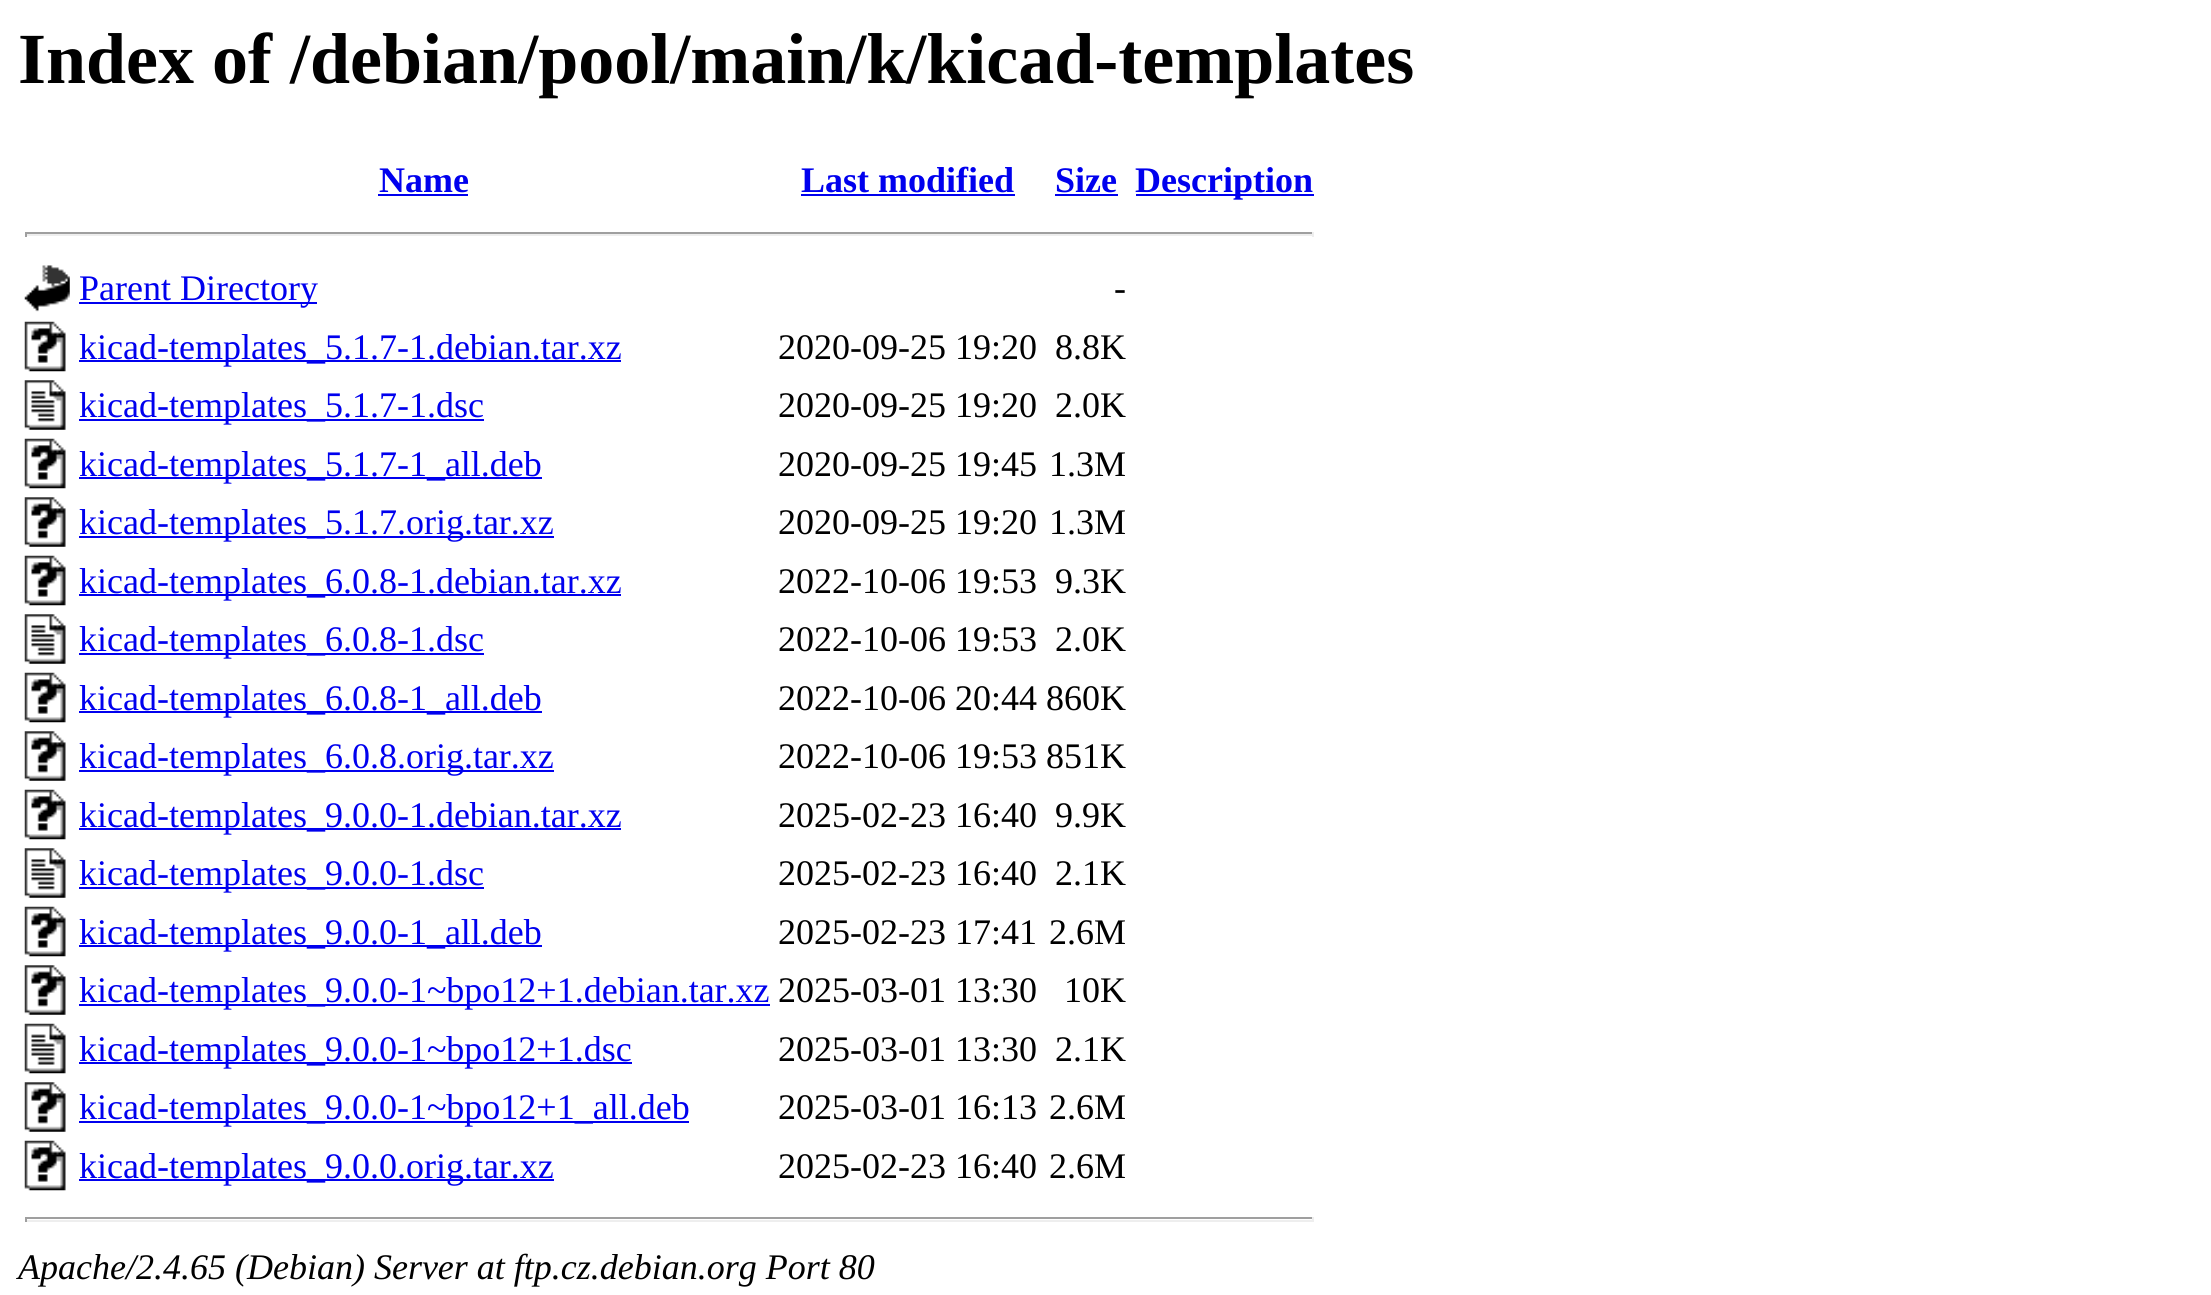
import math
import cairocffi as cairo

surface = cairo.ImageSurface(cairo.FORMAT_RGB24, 2211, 1295)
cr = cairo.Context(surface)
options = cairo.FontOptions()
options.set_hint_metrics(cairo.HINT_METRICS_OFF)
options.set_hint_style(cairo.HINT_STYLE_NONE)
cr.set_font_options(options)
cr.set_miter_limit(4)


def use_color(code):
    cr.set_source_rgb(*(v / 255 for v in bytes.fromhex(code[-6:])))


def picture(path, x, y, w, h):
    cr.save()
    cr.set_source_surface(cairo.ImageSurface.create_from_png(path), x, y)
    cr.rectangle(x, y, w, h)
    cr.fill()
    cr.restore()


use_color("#ffffff")
cr.paint()
cr.select_font_face("Liberation Serif", cairo.FONT_SLANT_NORMAL, cairo.FONT_WEIGHT_BOLD)
cr.set_font_size(72)
use_color("#000000")
cr.move_to(18, 83)
cr.show_text("Index of /debian/pool/main/k/kicad-templates")
cr.set_font_size(36)
use_color("#0000ee")
cr.move_to(379, 192)
cr.show_text("Name")
cr.rectangle(378, 194, 90, 2)
cr.fill()
cr.move_to(801, 192)
cr.show_text("Last modified")
cr.rectangle(801, 194, 214, 2)
cr.fill()
cr.move_to(1055, 192)
cr.show_text("Size")
cr.rectangle(1055, 194, 63, 2)
cr.fill()
cr.rectangle(1136, 194, 178, 2)
cr.fill()
cr.move_to(1135, 192)
cr.show_text("Description")
use_color("#9f9f9f")
cr.rectangle(25, 232, 1289, 2)
cr.fill()
use_color("#eeeeee")
cr.rectangle(1312, 232, 2, 5)
cr.fill()
cr.rectangle(25, 234, 1289, 2)
cr.fill()
use_color("#9f9f9f")
cr.rectangle(25, 232, 2, 5)
cr.fill()
picture("img1.png", 24, 265, 46, 47)
use_color("#0000ee")
cr.rectangle(79, 302, 238, 2)
cr.fill()
cr.select_font_face("Liberation Serif")
cr.move_to(79, 300)
cr.show_text("Parent Directory")
use_color("#000000")
cr.move_to(1114, 300)
cr.show_text("-")
picture("img2.png", 24, 321, 42, 51)
use_color("#0000ee")
cr.rectangle(79, 360, 542, 2)
cr.fill()
cr.move_to(79, 359)
cr.show_text("kicad-templates_5.1.7-1.debian.tar.xz")
use_color("#000000")
cr.move_to(778, 359)
cr.show_text("2020-09-25 19:20")
cr.move_to(1055, 359)
cr.show_text("8.8K")
picture("img3.png", 24, 380, 42, 50)
use_color("#0000ee")
cr.rectangle(79, 419, 405, 2)
cr.fill()
cr.move_to(79, 417)
cr.show_text("kicad-templates_5.1.7-1.dsc")
use_color("#000000")
cr.move_to(778, 417)
cr.show_text("2020-09-25 19:20")
cr.move_to(1055, 417)
cr.show_text("2.0K")
picture("img2.png", 24, 438, 42, 51)
use_color("#0000ee")
cr.rectangle(79, 477, 463, 2)
cr.fill()
cr.move_to(79, 476)
cr.show_text("kicad-templates_5.1.7-1_all.deb")
use_color("#000000")
cr.move_to(778, 476)
cr.show_text("2020-09-25 19:45")
cr.move_to(1049, 476)
cr.show_text("1.3M")
picture("img4.png", 24, 497, 42, 50)
use_color("#0000ee")
cr.rectangle(79, 536, 475, 2)
cr.fill()
cr.move_to(79, 534)
cr.show_text("kicad-templates_5.1.7.orig.tar.xz")
use_color("#000000")
cr.move_to(778, 534)
cr.show_text("2020-09-25 19:20")
cr.move_to(1049, 534)
cr.show_text("1.3M")
picture("img5.png", 24, 555, 42, 51)
use_color("#0000ee")
cr.rectangle(79, 594, 542, 2)
cr.fill()
cr.move_to(79, 593)
cr.show_text("kicad-templates_6.0.8-1.debian.tar.xz")
use_color("#000000")
cr.move_to(778, 593)
cr.show_text("2022-10-06 19:53")
cr.move_to(1055, 593)
cr.show_text("9.3K")
picture("img3.png", 24, 614, 42, 50)
use_color("#0000ee")
cr.rectangle(79, 653, 405, 2)
cr.fill()
cr.move_to(79, 651)
cr.show_text("kicad-templates_6.0.8-1.dsc")
use_color("#000000")
cr.move_to(778, 651)
cr.show_text("2022-10-06 19:53")
cr.move_to(1055, 651)
cr.show_text("2.0K")
picture("img2.png", 24, 672, 42, 51)
use_color("#0000ee")
cr.rectangle(79, 711, 463, 2)
cr.fill()
cr.move_to(79, 710)
cr.show_text("kicad-templates_6.0.8-1_all.deb")
use_color("#000000")
cr.move_to(778, 710)
cr.show_text("2022-10-06 20:44 860K")
picture("img4.png", 24, 731, 42, 50)
use_color("#0000ee")
cr.rectangle(79, 770, 475, 2)
cr.fill()
cr.move_to(79, 768)
cr.show_text("kicad-templates_6.0.8.orig.tar.xz")
use_color("#000000")
cr.move_to(778, 768)
cr.show_text("2022-10-06 19:53 851K")
picture("img2.png", 24, 789, 42, 51)
use_color("#0000ee")
cr.rectangle(79, 828, 542, 2)
cr.fill()
cr.move_to(79, 827)
cr.show_text("kicad-templates_9.0.0-1.debian.tar.xz")
use_color("#000000")
cr.move_to(778, 827)
cr.show_text("2025-02-23 16:40")
cr.move_to(1055, 827)
cr.show_text("9.9K")
picture("img3.png", 24, 848, 42, 50)
use_color("#0000ee")
cr.rectangle(79, 887, 405, 2)
cr.fill()
cr.move_to(79, 885)
cr.show_text("kicad-templates_9.0.0-1.dsc")
use_color("#000000")
cr.move_to(778, 885)
cr.show_text("2025-02-23 16:40")
cr.move_to(1055, 885)
cr.show_text("2.1K")
picture("img2.png", 24, 906, 42, 51)
use_color("#0000ee")
cr.rectangle(79, 945, 463, 2)
cr.fill()
cr.move_to(79, 944)
cr.show_text("kicad-templates_9.0.0-1_all.deb")
use_color("#000000")
cr.move_to(778, 944)
cr.show_text("2025-02-23 17:41")
cr.move_to(1049, 944)
cr.show_text("2.6M")
picture("img4.png", 24, 965, 42, 50)
use_color("#0000ee")
cr.rectangle(79, 1004, 691, 2)
cr.fill()
cr.move_to(79, 1002)
cr.show_text("kicad-templates_9.0.0-1~bpo12+1.debian.tar.xz")
use_color("#000000")
cr.move_to(778, 1002)
cr.show_text("2025-03-01 13:30")
cr.move_to(1064, 1002)
cr.show_text("10K")
picture("img6.png", 24, 1023, 42, 51)
use_color("#0000ee")
cr.rectangle(79, 1062, 553, 2)
cr.fill()
cr.move_to(79, 1061)
cr.show_text("kicad-templates_9.0.0-1~bpo12+1.dsc")
use_color("#000000")
cr.move_to(778, 1061)
cr.show_text("2025-03-01 13:30")
cr.move_to(1055, 1061)
cr.show_text("2.1K")
picture("img4.png", 24, 1082, 42, 50)
use_color("#0000ee")
cr.rectangle(79, 1121, 610, 2)
cr.fill()
cr.move_to(79, 1119)
cr.show_text("kicad-templates_9.0.0-1~bpo12+1_all.deb")
use_color("#000000")
cr.move_to(778, 1119)
cr.show_text("2025-03-01 16:13")
cr.move_to(1049, 1119)
cr.show_text("2.6M")
picture("img5.png", 24, 1140, 42, 51)
use_color("#0000ee")
cr.rectangle(79, 1179, 475, 2)
cr.fill()
cr.move_to(79, 1178)
cr.show_text("kicad-templates_9.0.0.orig.tar.xz")
use_color("#000000")
cr.move_to(778, 1178)
cr.show_text("2025-02-23 16:40")
cr.move_to(1049, 1178)
cr.show_text("2.6M")
use_color("#9f9f9f")
cr.rectangle(25, 1217, 1289, 2)
cr.fill()
use_color("#eeeeee")
cr.rectangle(1312, 1217, 2, 5)
cr.fill()
cr.rectangle(25, 1220, 1289, 2)
cr.fill()
use_color("#9f9f9f")
cr.rectangle(25, 1217, 2, 5)
cr.fill()
cr.select_font_face("Liberation Serif", cairo.FONT_SLANT_ITALIC)
use_color("#000000")
cr.move_to(18, 1279)
cr.show_text("Apache/2.4.65 (Debian) Server at ftp.cz.debian.org Port 80")
surface.write_to_png("result.png")
